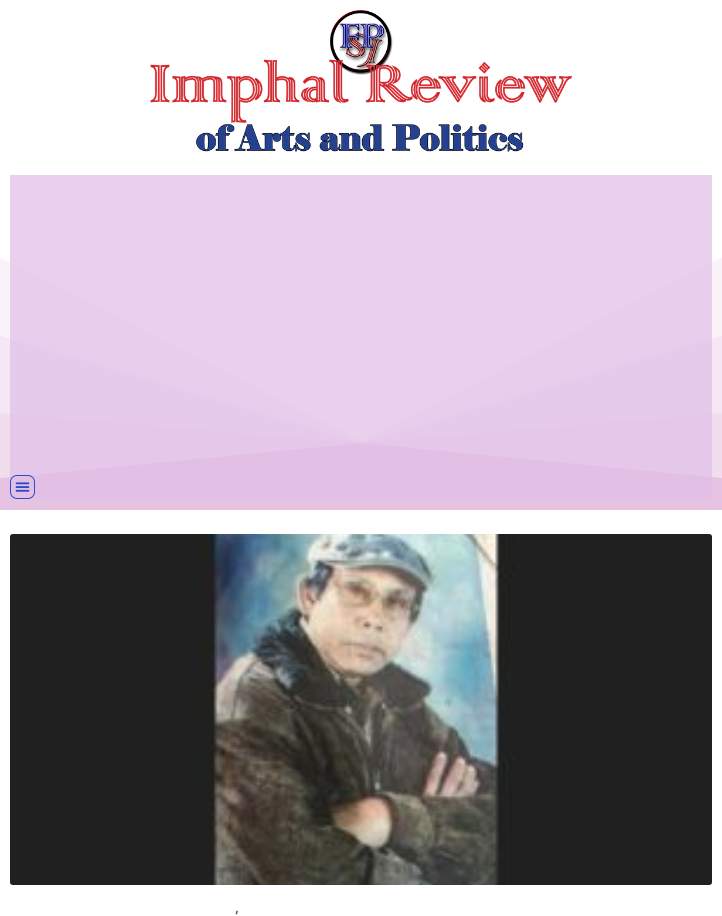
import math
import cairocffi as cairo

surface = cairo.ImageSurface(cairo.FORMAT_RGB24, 722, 916)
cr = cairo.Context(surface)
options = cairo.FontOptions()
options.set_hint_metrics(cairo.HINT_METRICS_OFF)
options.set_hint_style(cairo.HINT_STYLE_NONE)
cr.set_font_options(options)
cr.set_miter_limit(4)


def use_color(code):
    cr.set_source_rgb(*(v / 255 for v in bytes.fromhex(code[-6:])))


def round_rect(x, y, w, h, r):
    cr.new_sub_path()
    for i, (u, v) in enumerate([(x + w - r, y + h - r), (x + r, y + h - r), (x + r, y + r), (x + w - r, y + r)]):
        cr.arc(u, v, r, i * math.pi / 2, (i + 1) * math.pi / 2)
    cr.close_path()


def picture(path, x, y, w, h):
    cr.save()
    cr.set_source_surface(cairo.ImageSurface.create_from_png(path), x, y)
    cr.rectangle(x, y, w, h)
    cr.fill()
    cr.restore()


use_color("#ffffff")
cr.paint()
picture("img1.png", 150, 10, 422, 142)
use_color("#faf2f9")
cr.new_path()
cr.move_to(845, 510)
cr.line_to(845, 195)
cr.line_to(361, 441)
cr.line_to(-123, 195)
cr.line_to(-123, 510)
cr.close_path()
cr.fill()
use_color("#f5e7f3")
cr.new_path()
cr.move_to(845, 510)
cr.line_to(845, 299)
cr.line_to(361, 443)
cr.line_to(-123, 299)
cr.line_to(-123, 510)
cr.close_path()
cr.fill()
use_color("#f1ddee")
cr.new_path()
cr.move_to(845, 510)
cr.line_to(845, 403)
cr.line_to(361, 443)
cr.line_to(-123, 403)
cr.line_to(-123, 510)
cr.close_path()
cr.fill()
use_color("#e6c3e2")
cr.new_path()
cr.move_to(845, 510)
cr.line_to(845, 490)
cr.line_to(361, 443)
cr.line_to(-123, 490)
cr.line_to(-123, 510)
cr.close_path()
cr.fill()
cr.set_source_rgba(0.882, 0.749, 0.91, 0.72)
cr.rectangle(10, 175, 702, 324)
cr.fill()
round_rect(10.5, 475.5, 24, 23, 6.5)
use_color("#2b4cc4")
cr.set_line_width(1)
cr.stroke()
picture("img2.png", 15, 482, 15, 10)
picture("img3.png", 10, 534, 702, 351)
cr.select_font_face("Roboto SemiBold")
cr.set_font_size(15)
use_color("#59595c")
cr.move_to(235, 922)
cr.show_text("’")
surface.write_to_png("result.png")
